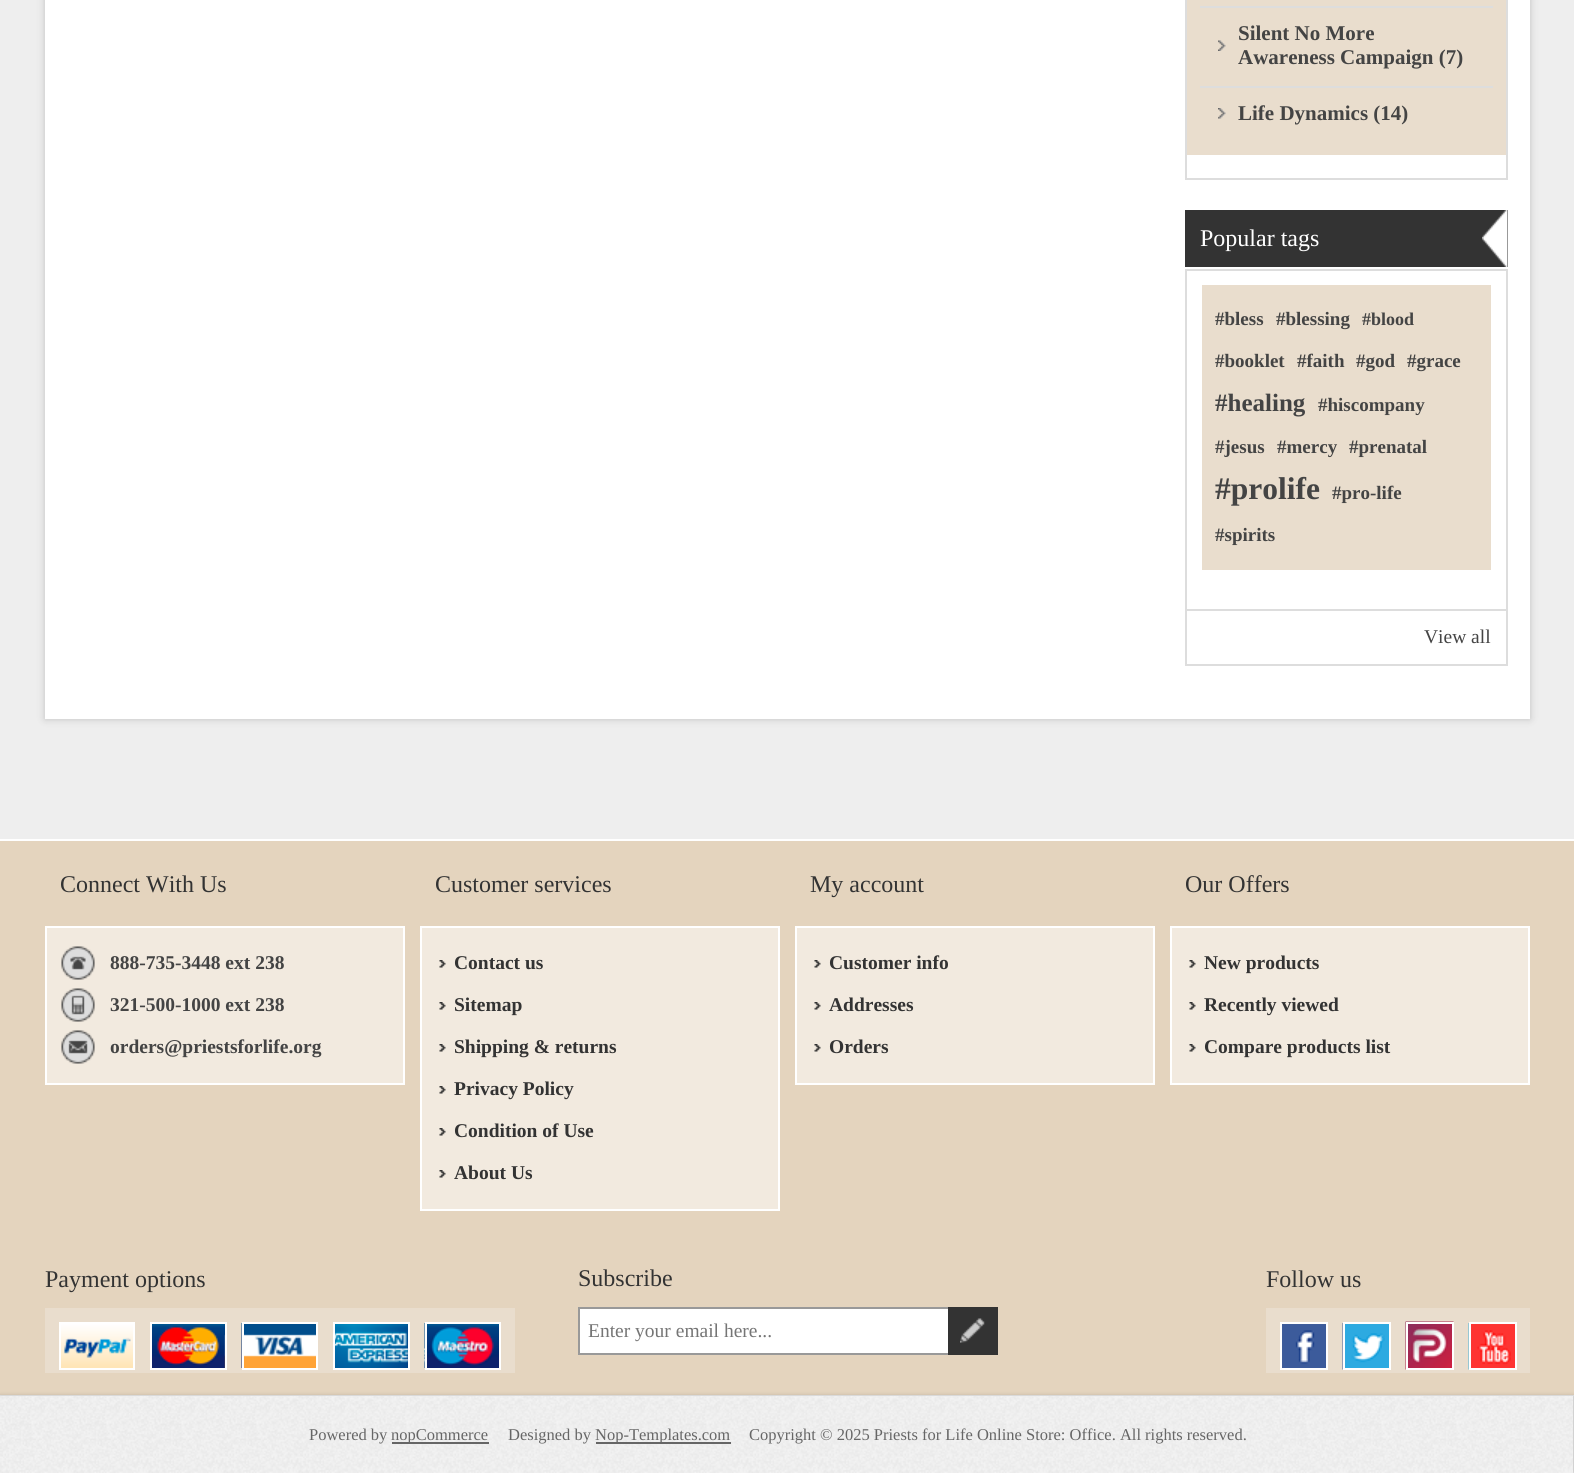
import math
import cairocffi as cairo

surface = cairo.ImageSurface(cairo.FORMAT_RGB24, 1574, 1473)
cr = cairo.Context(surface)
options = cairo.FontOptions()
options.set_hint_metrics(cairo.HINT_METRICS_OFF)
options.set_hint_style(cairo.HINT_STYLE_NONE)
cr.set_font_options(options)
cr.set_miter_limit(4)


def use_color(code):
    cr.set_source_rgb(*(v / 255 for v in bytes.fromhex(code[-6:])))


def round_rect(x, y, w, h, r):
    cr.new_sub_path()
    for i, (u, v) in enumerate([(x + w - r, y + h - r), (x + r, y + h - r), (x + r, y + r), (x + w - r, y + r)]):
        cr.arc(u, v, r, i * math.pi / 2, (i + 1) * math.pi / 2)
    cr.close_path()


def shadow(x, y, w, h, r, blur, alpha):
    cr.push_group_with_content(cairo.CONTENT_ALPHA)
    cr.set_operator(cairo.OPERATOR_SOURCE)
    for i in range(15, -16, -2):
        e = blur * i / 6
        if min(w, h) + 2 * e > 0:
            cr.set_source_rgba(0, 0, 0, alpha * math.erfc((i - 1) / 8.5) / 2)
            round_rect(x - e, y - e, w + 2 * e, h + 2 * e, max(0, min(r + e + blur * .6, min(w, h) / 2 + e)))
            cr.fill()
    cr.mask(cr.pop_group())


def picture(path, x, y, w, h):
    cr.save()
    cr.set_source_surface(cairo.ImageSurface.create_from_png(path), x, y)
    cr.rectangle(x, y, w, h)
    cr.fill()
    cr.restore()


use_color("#eeeeee")
cr.paint()
use_color("#000000")
shadow(45, -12, 1485, 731, 0, 4, 0.2)
use_color("#ffffff")
cr.rectangle(45, 0, 1485, 719)
cr.fill()
cr.rectangle(1186, -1, 321, 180)
use_color("#dddddd")
cr.stroke()
use_color("#e9ddcd")
cr.rectangle(1187, 0, 319, 155)
cr.fill()
use_color("#dddddd")
cr.rectangle(1200, 6, 293, 2)
cr.fill()
picture("img1.png", 1218, 40, 8, 11)
cr.select_font_face("Liberation Serif", cairo.FONT_SLANT_NORMAL, cairo.FONT_WEIGHT_BOLD)
cr.set_font_size(21)
use_color("#444444")
cr.move_to(1238, 40)
cr.show_text("Silent No More")
cr.move_to(1238, 64)
cr.show_text("Awareness Campaign (7)")
use_color("#dddddd")
cr.rectangle(1200, 86, 293, 2)
cr.fill()
picture("img2.png", 1218, 108, 8, 11)
use_color("#444444")
cr.move_to(1238, 120)
cr.show_text("Life Dynamics (14)")
use_color("#333333")
cr.rectangle(1185, 210, 323, 57)
cr.fill()
picture("img3.png", 1482, 210, 26, 57)
cr.select_font_face("Liberation Serif")
cr.set_font_size(24)
use_color("#ffffff")
cr.move_to(1200, 246)
cr.show_text("Popular tags")
cr.rectangle(1186, 270, 321, 395)
use_color("#dddddd")
cr.stroke()
use_color("#e9ddcd")
cr.rectangle(1202, 285, 289, 285)
cr.fill()
cr.select_font_face("Liberation Serif", cairo.FONT_SLANT_NORMAL, cairo.FONT_WEIGHT_BOLD)
cr.set_font_size(19)
use_color("#444444")
cr.move_to(1215, 325)
cr.show_text("#bless")
cr.move_to(1276, 325)
cr.show_text("#blessing")
cr.set_font_size(18)
cr.move_to(1362, 325)
cr.show_text("#blood")
cr.set_font_size(19)
cr.move_to(1215, 367)
cr.show_text("#booklet")
cr.move_to(1297, 367)
cr.show_text("#faith")
cr.move_to(1356, 367)
cr.show_text("#god")
cr.move_to(1407, 367)
cr.show_text("#grace")
cr.set_font_size(25)
cr.move_to(1215, 411)
cr.show_text("#healing")
cr.set_font_size(19)
cr.move_to(1318, 411)
cr.show_text("#hiscompany")
cr.move_to(1215, 453)
cr.show_text("#jesus")
cr.move_to(1277, 453)
cr.show_text("#mercy")
cr.move_to(1349, 453)
cr.show_text("#prenatal")
cr.set_font_size(31.5)
cr.move_to(1215, 499)
cr.show_text("#prolife")
cr.set_font_size(19)
cr.move_to(1332, 499)
cr.show_text("#pro-life")
cr.move_to(1215, 541)
cr.show_text("#spirits")
use_color("#dddddd")
cr.rectangle(1187, 609, 319, 2)
cr.fill()
cr.select_font_face("Liberation Serif")
cr.set_font_size(19.5)
use_color("#444444")
cr.move_to(1424, 643)
cr.show_text("View all")
use_color("#e4d4be")
cr.rectangle(0, 841, 1574, 554)
cr.fill()
use_color("#ffffff")
cr.rectangle(0, 839, 1574, 2)
cr.fill()
cr.set_font_size(24)
use_color("#333333")
cr.move_to(60, 892)
cr.show_text("Connect With Us")
cr.set_source_rgba(1, 1, 1, 0.5)
cr.rectangle(46, 927, 358, 157)
cr.fill_preserve()
use_color("#ffffff")
cr.stroke()
picture("img4.png", 61, 946, 34, 34)
cr.select_font_face("Liberation Serif", cairo.FONT_SLANT_NORMAL, cairo.FONT_WEIGHT_BOLD)
cr.set_font_size(19.5)
use_color("#444444")
cr.move_to(110, 969)
cr.show_text("888-735-3448 ext 238")
picture("img5.png", 61, 988, 34, 34)
cr.move_to(110, 1011)
cr.show_text("321-500-1000 ext 238")
picture("img6.png", 61, 1030, 34, 34)
cr.move_to(110, 1053)
cr.show_text("orders@priestsforlife.org")
cr.select_font_face("Liberation Serif")
cr.set_font_size(24)
use_color("#333333")
cr.move_to(435, 892)
cr.show_text("Customer services")
cr.set_source_rgba(1, 1, 1, 0.5)
cr.rectangle(421, 927, 358, 283)
cr.fill_preserve()
use_color("#ffffff")
cr.stroke()
picture("img7.png", 439, 960, 7, 8)
cr.select_font_face("Liberation Serif", cairo.FONT_SLANT_NORMAL, cairo.FONT_WEIGHT_BOLD)
cr.set_font_size(19.5)
use_color("#333333")
cr.move_to(454, 969)
cr.show_text("Contact us")
picture("img7.png", 439, 1002, 7, 8)
cr.move_to(454, 1011)
cr.show_text("Sitemap")
picture("img7.png", 439, 1044, 7, 8)
cr.move_to(454, 1053)
cr.show_text("Shipping & returns")
picture("img7.png", 439, 1086, 7, 8)
cr.move_to(454, 1095)
cr.show_text("Privacy Policy")
picture("img7.png", 439, 1128, 7, 8)
cr.move_to(454, 1137)
cr.show_text("Condition of Use")
picture("img7.png", 439, 1170, 7, 8)
cr.move_to(454, 1179)
cr.show_text("About Us")
cr.select_font_face("Liberation Serif")
cr.set_font_size(24)
cr.move_to(810, 892)
cr.show_text("My account")
cr.set_source_rgba(1, 1, 1, 0.5)
cr.rectangle(796, 927, 358, 157)
cr.fill_preserve()
use_color("#ffffff")
cr.stroke()
picture("img8.png", 814, 960, 7, 8)
cr.select_font_face("Liberation Serif", cairo.FONT_SLANT_NORMAL, cairo.FONT_WEIGHT_BOLD)
cr.set_font_size(19.5)
use_color("#333333")
cr.move_to(829, 969)
cr.show_text("Customer info")
picture("img8.png", 814, 1002, 7, 8)
cr.move_to(829, 1011)
cr.show_text("Addresses")
picture("img8.png", 814, 1044, 7, 8)
cr.move_to(829, 1053)
cr.show_text("Orders")
cr.select_font_face("Liberation Serif")
cr.set_font_size(24)
cr.move_to(1185, 892)
cr.show_text("Our Offers")
cr.set_source_rgba(1, 1, 1, 0.5)
cr.rectangle(1171, 927, 358, 157)
cr.fill_preserve()
use_color("#ffffff")
cr.stroke()
picture("img7.png", 1189, 960, 7, 8)
cr.select_font_face("Liberation Serif", cairo.FONT_SLANT_NORMAL, cairo.FONT_WEIGHT_BOLD)
cr.set_font_size(19.5)
use_color("#333333")
cr.move_to(1204, 969)
cr.show_text("New products")
picture("img7.png", 1189, 1002, 7, 8)
cr.move_to(1204, 1011)
cr.show_text("Recently viewed")
picture("img7.png", 1189, 1044, 7, 8)
cr.move_to(1204, 1053)
cr.show_text("Compare products list")
cr.select_font_face("Liberation Serif")
cr.set_font_size(24)
cr.move_to(45, 1287)
cr.show_text("Payment options")
use_color("#e9ddcd")
cr.rectangle(45, 1308, 470, 65)
cr.fill()
picture("img9.png", 61, 1324, 72, 44)
cr.rectangle(60, 1323, 74, 46)
use_color("#ffffff")
cr.stroke()
picture("img10.png", 152, 1324, 73, 44)
cr.rectangle(151, 1323, 75, 46)
cr.stroke()
picture("img11.png", 241, 1323, 75, 45)
cr.rectangle(243, 1323, 74, 46)
cr.stroke()
picture("img12.png", 335, 1324, 73, 44)
cr.rectangle(334, 1323, 75, 46)
cr.stroke()
picture("img13.png", 424, 1323, 75, 45)
cr.rectangle(426, 1323, 74, 46)
cr.stroke()
use_color("#333333")
cr.move_to(578, 1286)
cr.show_text("Subscribe")
use_color("#ffffff")
cr.rectangle(579, 1308, 370, 46)
cr.fill_preserve()
use_color("#999999")
cr.stroke()
cr.set_font_size(19.5)
use_color("#757575")
cr.move_to(588, 1337)
cr.show_text("Enter your email here...")
use_color("#333333")
cr.rectangle(948, 1307, 50, 48)
cr.fill()
picture("img14.png", 960, 1318, 25, 25)
cr.set_font_size(24)
cr.move_to(1266, 1287)
cr.show_text("Follow us")
use_color("#e9ddcd")
cr.rectangle(1266, 1308, 264, 65)
cr.fill()
picture("img15.png", 1282, 1324, 44, 44)
cr.rectangle(1281, 1323, 46, 46)
use_color("#ffffff")
cr.stroke()
picture("img16.png", 1342, 1323, 47, 47)
cr.rectangle(1344, 1323, 46, 46)
cr.stroke()
picture("img17.png", 1405, 1321, 49, 49)
cr.rectangle(1407, 1323, 46, 46)
cr.stroke()
picture("img18.png", 1468, 1323, 47, 47)
cr.rectangle(1470, 1323, 46, 46)
cr.stroke()
use_color("#000000")
shadow(0, 1395, 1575, 78, 0, 2, 0.15)
picture("img19.png", 0, 1396, 1573, 77)
cr.set_font_size(16.5)
use_color("#666666")
cr.move_to(309, 1440)
cr.show_text("Powered by")
cr.rectangle(392, 1442, 97, 2)
cr.fill()
cr.move_to(391, 1440)
cr.show_text("nopCommerce")
cr.move_to(508, 1440)
cr.show_text("Designed by")
cr.rectangle(596, 1442, 135, 2)
cr.fill()
cr.move_to(595, 1440)
cr.show_text("Nop-Templates.com")
cr.move_to(749, 1440)
cr.show_text("Copyright © 2025 Priests for Life Online Store: Office. All rights reserved.")
surface.write_to_png("result.png")
